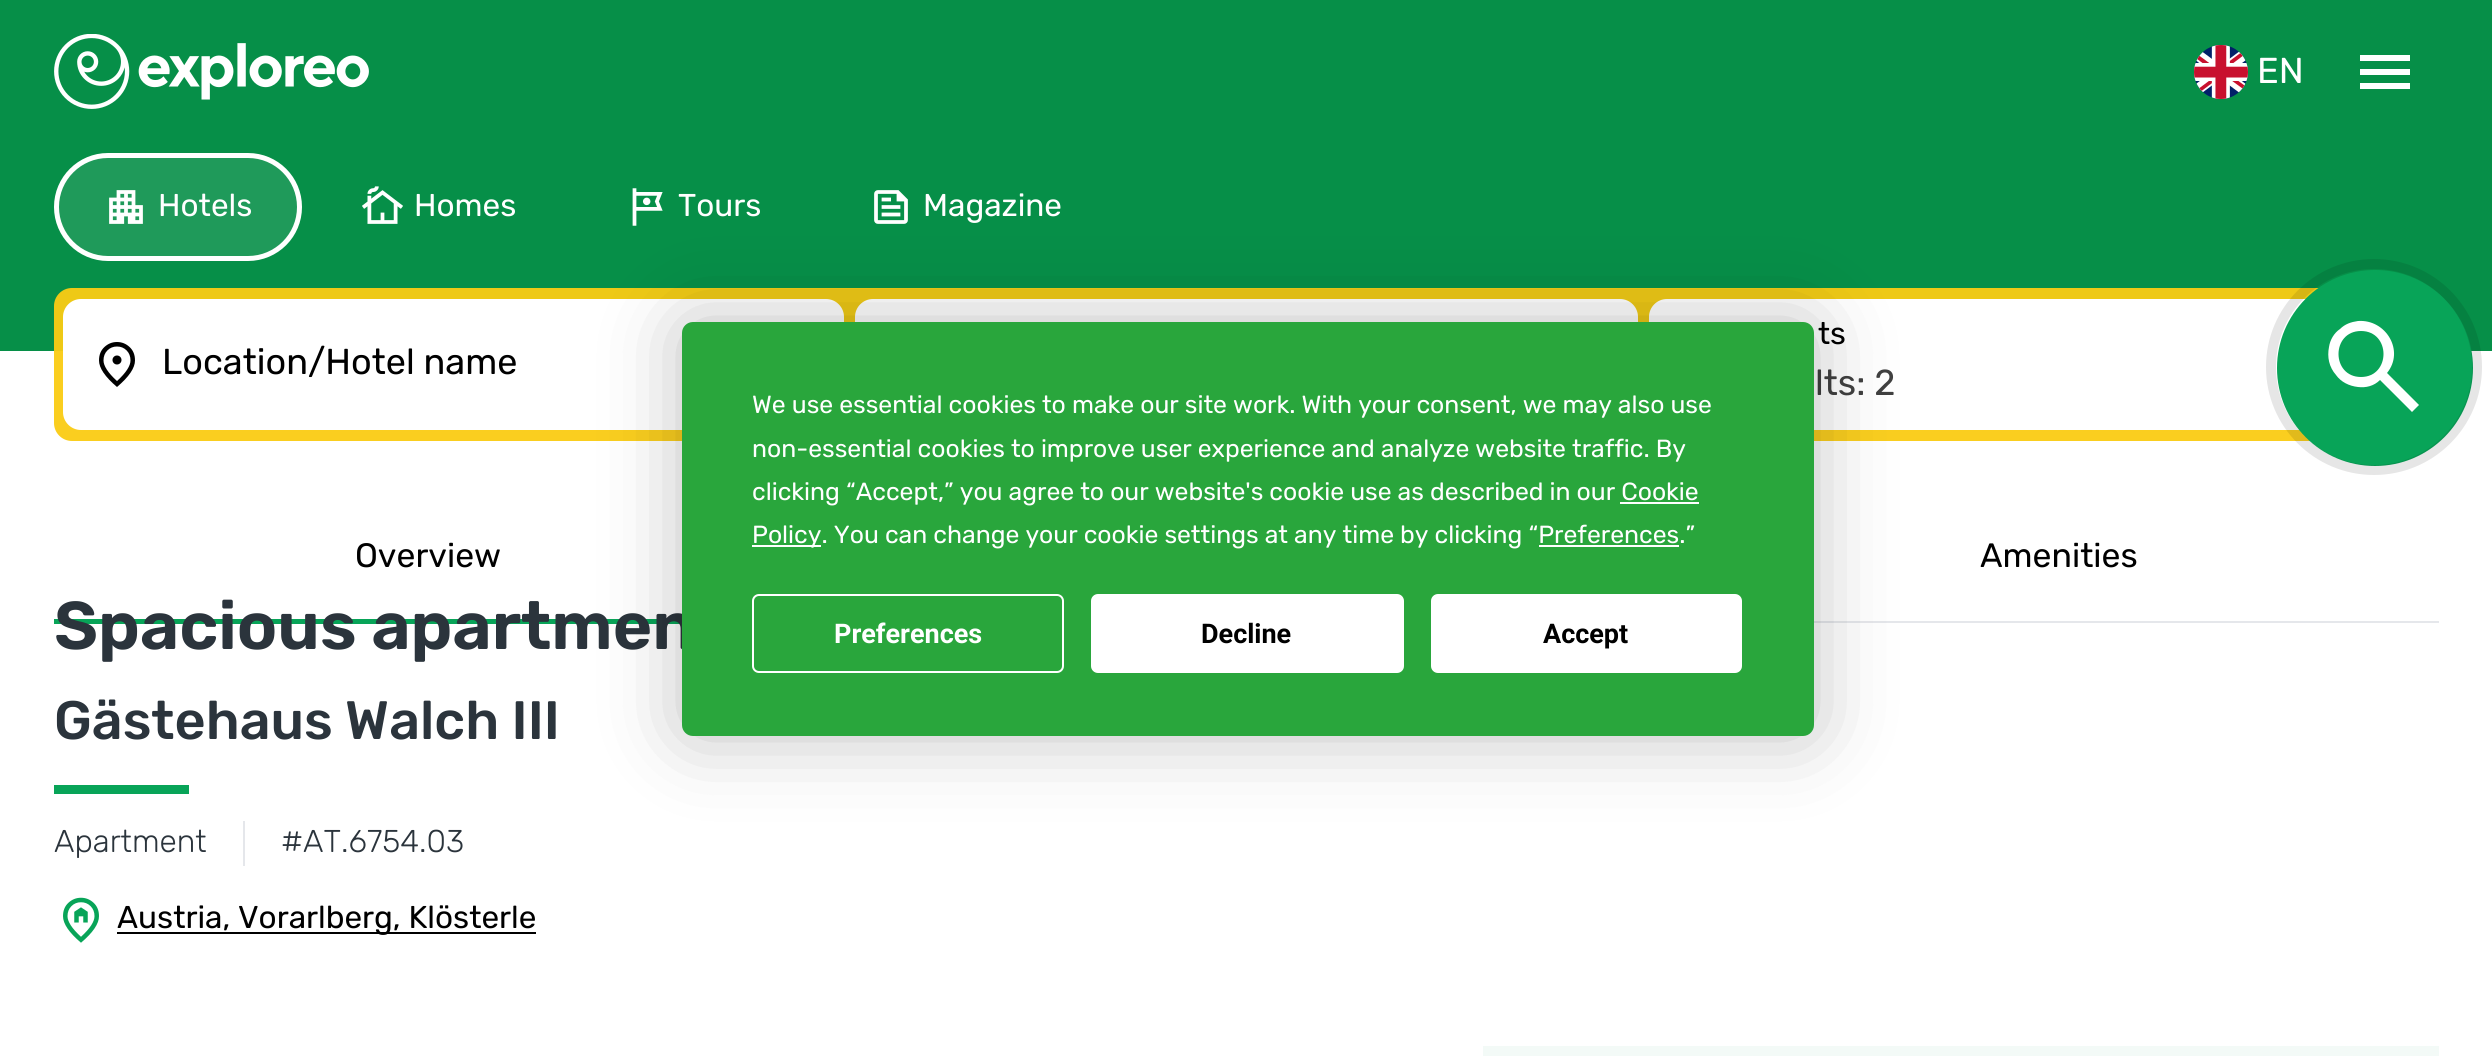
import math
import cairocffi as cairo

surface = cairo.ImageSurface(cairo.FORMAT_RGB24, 2492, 1056)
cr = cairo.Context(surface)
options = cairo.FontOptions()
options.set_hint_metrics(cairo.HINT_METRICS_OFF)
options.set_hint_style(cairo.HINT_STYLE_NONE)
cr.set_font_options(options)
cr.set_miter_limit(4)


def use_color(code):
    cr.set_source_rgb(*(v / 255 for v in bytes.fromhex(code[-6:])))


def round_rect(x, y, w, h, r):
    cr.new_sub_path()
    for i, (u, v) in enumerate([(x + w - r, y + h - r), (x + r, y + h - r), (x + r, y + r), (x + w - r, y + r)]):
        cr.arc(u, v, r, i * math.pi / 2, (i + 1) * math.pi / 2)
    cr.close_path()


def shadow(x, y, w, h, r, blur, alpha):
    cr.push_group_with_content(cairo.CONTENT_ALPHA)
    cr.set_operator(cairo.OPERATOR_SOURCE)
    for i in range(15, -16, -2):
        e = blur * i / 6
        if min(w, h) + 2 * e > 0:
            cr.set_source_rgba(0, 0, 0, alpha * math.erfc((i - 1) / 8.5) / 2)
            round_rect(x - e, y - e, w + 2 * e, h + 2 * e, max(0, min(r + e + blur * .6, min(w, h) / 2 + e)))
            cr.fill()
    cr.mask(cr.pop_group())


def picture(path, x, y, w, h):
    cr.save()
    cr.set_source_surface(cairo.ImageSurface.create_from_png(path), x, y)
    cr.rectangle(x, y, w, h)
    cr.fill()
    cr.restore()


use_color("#ffffff")
cr.paint()
use_color("#068f48")
cr.rectangle(0, 0, 2492, 351)
cr.fill()
picture("img1.png", 54, 34, 315, 75)
picture("img2.png", 2194, 45, 54, 54)
cr.select_font_face("Rubik")
cr.set_font_size(36)
use_color("#ffffff")
cr.move_to(2257, 83)
cr.show_text("EN")
cr.new_path()
cr.move_to(2360, 89)
cr.line_to(2360, 83)
cr.line_to(2410, 83)
cr.line_to(2410, 89)
cr.close_path()
cr.move_to(2360, 75)
cr.line_to(2360, 69)
cr.line_to(2410, 69)
cr.line_to(2410, 75)
cr.close_path()
cr.move_to(2360, 61)
cr.line_to(2360, 55)
cr.line_to(2410, 55)
cr.line_to(2410, 61)
cr.close_path()
cr.fill()
use_color("#1f9a5a")
round_rect(56.5, 155.5, 243, 103, 51.5)
cr.fill_preserve()
use_color("#ffffff")
cr.set_line_width(5)
cr.stroke()
picture("img3.png", 109, 190, 34, 34)
cr.set_font_size(31.5)
cr.move_to(158, 216)
cr.show_text("Hotels")
picture("img4.png", 362, 186, 41, 38)
cr.move_to(414, 216)
cr.show_text("Homes")
picture("img5.png", 632, 188, 31, 38)
cr.move_to(678, 216)
cr.show_text("Tours")
picture("img6.png", 874, 190, 34, 34)
cr.move_to(923, 216)
cr.show_text("Magazine")
cr.set_source_rgba(0.98, 0.8, 0.082, 0.95)
round_rect(54, 288, 2385, 153, 18)
cr.fill()
use_color("#ffffff")
round_rect(63, 299, 781, 131, 18)
cr.fill()
picture("img7.png", 99, 342, 36, 45)
cr.set_font_size(36)
use_color("#000000")
cr.move_to(162, 374)
cr.show_text("Location/Hotel name")
use_color("#ffffff")
round_rect(855, 299, 783, 131, 18)
cr.fill()
round_rect(1649, 299, 781, 131, 18)
cr.fill()
cr.set_font_size(31)
use_color("#000000")
cr.move_to(1818, 344)
cr.show_text("ts")
cr.set_font_size(36)
use_color("#404040")
cr.move_to(1815, 395)
cr.show_text("lts: 2")
use_color("#08a458")
cr.new_path()
cr.arc(2375, 368, 98, 0, 2 * math.pi)
cr.fill()
use_color("#ffffff")
cr.new_path()
cr.move_to(2412, 412)
cr.line_to(2380, 380)
cr.curve_to(2374, 386, 2366, 388, 2358, 387)
cr.curve_to(2349, 386, 2341, 382, 2336, 375)
cr.curve_to(2329, 367, 2327, 357, 2329, 347)
cr.curve_to(2330, 340, 2334, 333, 2340, 329)
cr.curve_to(2345, 324, 2351, 322, 2358, 321)
cr.curve_to(2386, 319, 2405, 351, 2387, 373)
cr.line_to(2419, 405)
cr.close_path()
cr.move_to(2361, 377)
cr.curve_to(2391, 377, 2391, 331, 2361, 331)
cr.curve_to(2331, 331, 2331, 377, 2361, 377)
cr.close_path()
cr.fill()
cr.arc(2374, 367, 103, 0, 2 * math.pi)
cr.set_source_rgba(0, 0, 0, 0.1)
cr.set_line_width(10)
cr.stroke()
use_color("#08a458")
cr.rectangle(54, 619, 628, 5)
cr.fill()
cr.set_font_size(33.75)
use_color("#000000")
cr.move_to(355, 567)
cr.show_text("Overview")
use_color("#e5e7eb")
cr.rectangle(1814, 621, 625, 2)
cr.fill()
use_color("#000000")
cr.move_to(1980, 567)
cr.show_text("Amenities")
cr.select_font_face("Rubik SemiBold")
cr.set_font_size(67.5)
use_color("#2b343c")
cr.move_to(54, 649)
cr.show_text("Spacious apartmen")
cr.select_font_face("Rubik Medium")
cr.set_font_size(54)
cr.move_to(54, 739)
cr.show_text("Gästehaus Walch III")
use_color("#08a458")
cr.rectangle(54, 785, 135, 9)
cr.fill()
use_color("#e5e7eb")
cr.rectangle(243, 821, 2, 45)
cr.fill()
cr.select_font_face("Rubik Light")
cr.set_font_size(31.5)
use_color("#2b343c")
cr.move_to(54, 852)
cr.show_text("Apartment")
cr.move_to(281, 852)
cr.show_text("#AT.6754.03")
picture("img8.png", 63, 897, 36, 46)
use_color("#000000")
cr.rectangle(117, 932, 419, 2)
cr.fill()
cr.select_font_face("Rubik")
cr.move_to(117, 928)
cr.show_text("Austria, Vorarlberg, Klösterle")
use_color("#f3faf7")
cr.rectangle(1483, 1046, 956, 10)
cr.fill()
use_color("#000000")
shadow(682, 322, 1132, 414, 11, 39.5, 0.25)
use_color("#29a63c")
round_rect(682, 322, 1132, 414, 11)
cr.fill()
cr.set_font_size(24.75)
use_color("#ffffff")
cr.move_to(752, 413)
cr.show_text("We use essential cookies to make our site work. With your consent, we may also use")
cr.move_to(752, 457)
cr.show_text("non-essential cookies to improve user experience and analyze website traffic. By")
cr.move_to(752, 500)
cr.show_text("clicking “Accept,” you agree to our website's cookie use as described in our Cookie")
cr.rectangle(752, 545, 69, 2)
cr.fill()
cr.move_to(752, 543)
cr.show_text("Policy. You can change your cookie settings at any time by clicking “Preferences.”")
cr.rectangle(1620, 502, 79, 2)
cr.fill()
cr.rectangle(1539, 545, 140, 2)
cr.fill()
round_rect(753, 595, 310, 77, 6)
cr.set_line_width(2)
cr.stroke()
cr.select_font_face("Roboto", cairo.FONT_SLANT_NORMAL, cairo.FONT_WEIGHT_BOLD)
cr.set_font_size(27)
cr.move_to(834, 643)
cr.show_text("Preferences")
round_rect(1092, 595, 311, 77, 6)
cr.fill_preserve()
cr.stroke()
use_color("#000000")
cr.move_to(1201, 643)
cr.show_text("Decline")
use_color("#ffffff")
round_rect(1432, 595, 309, 77, 6)
cr.fill_preserve()
cr.stroke()
use_color("#000000")
cr.move_to(1543, 643)
cr.show_text("Accept")
surface.write_to_png("result.png")
